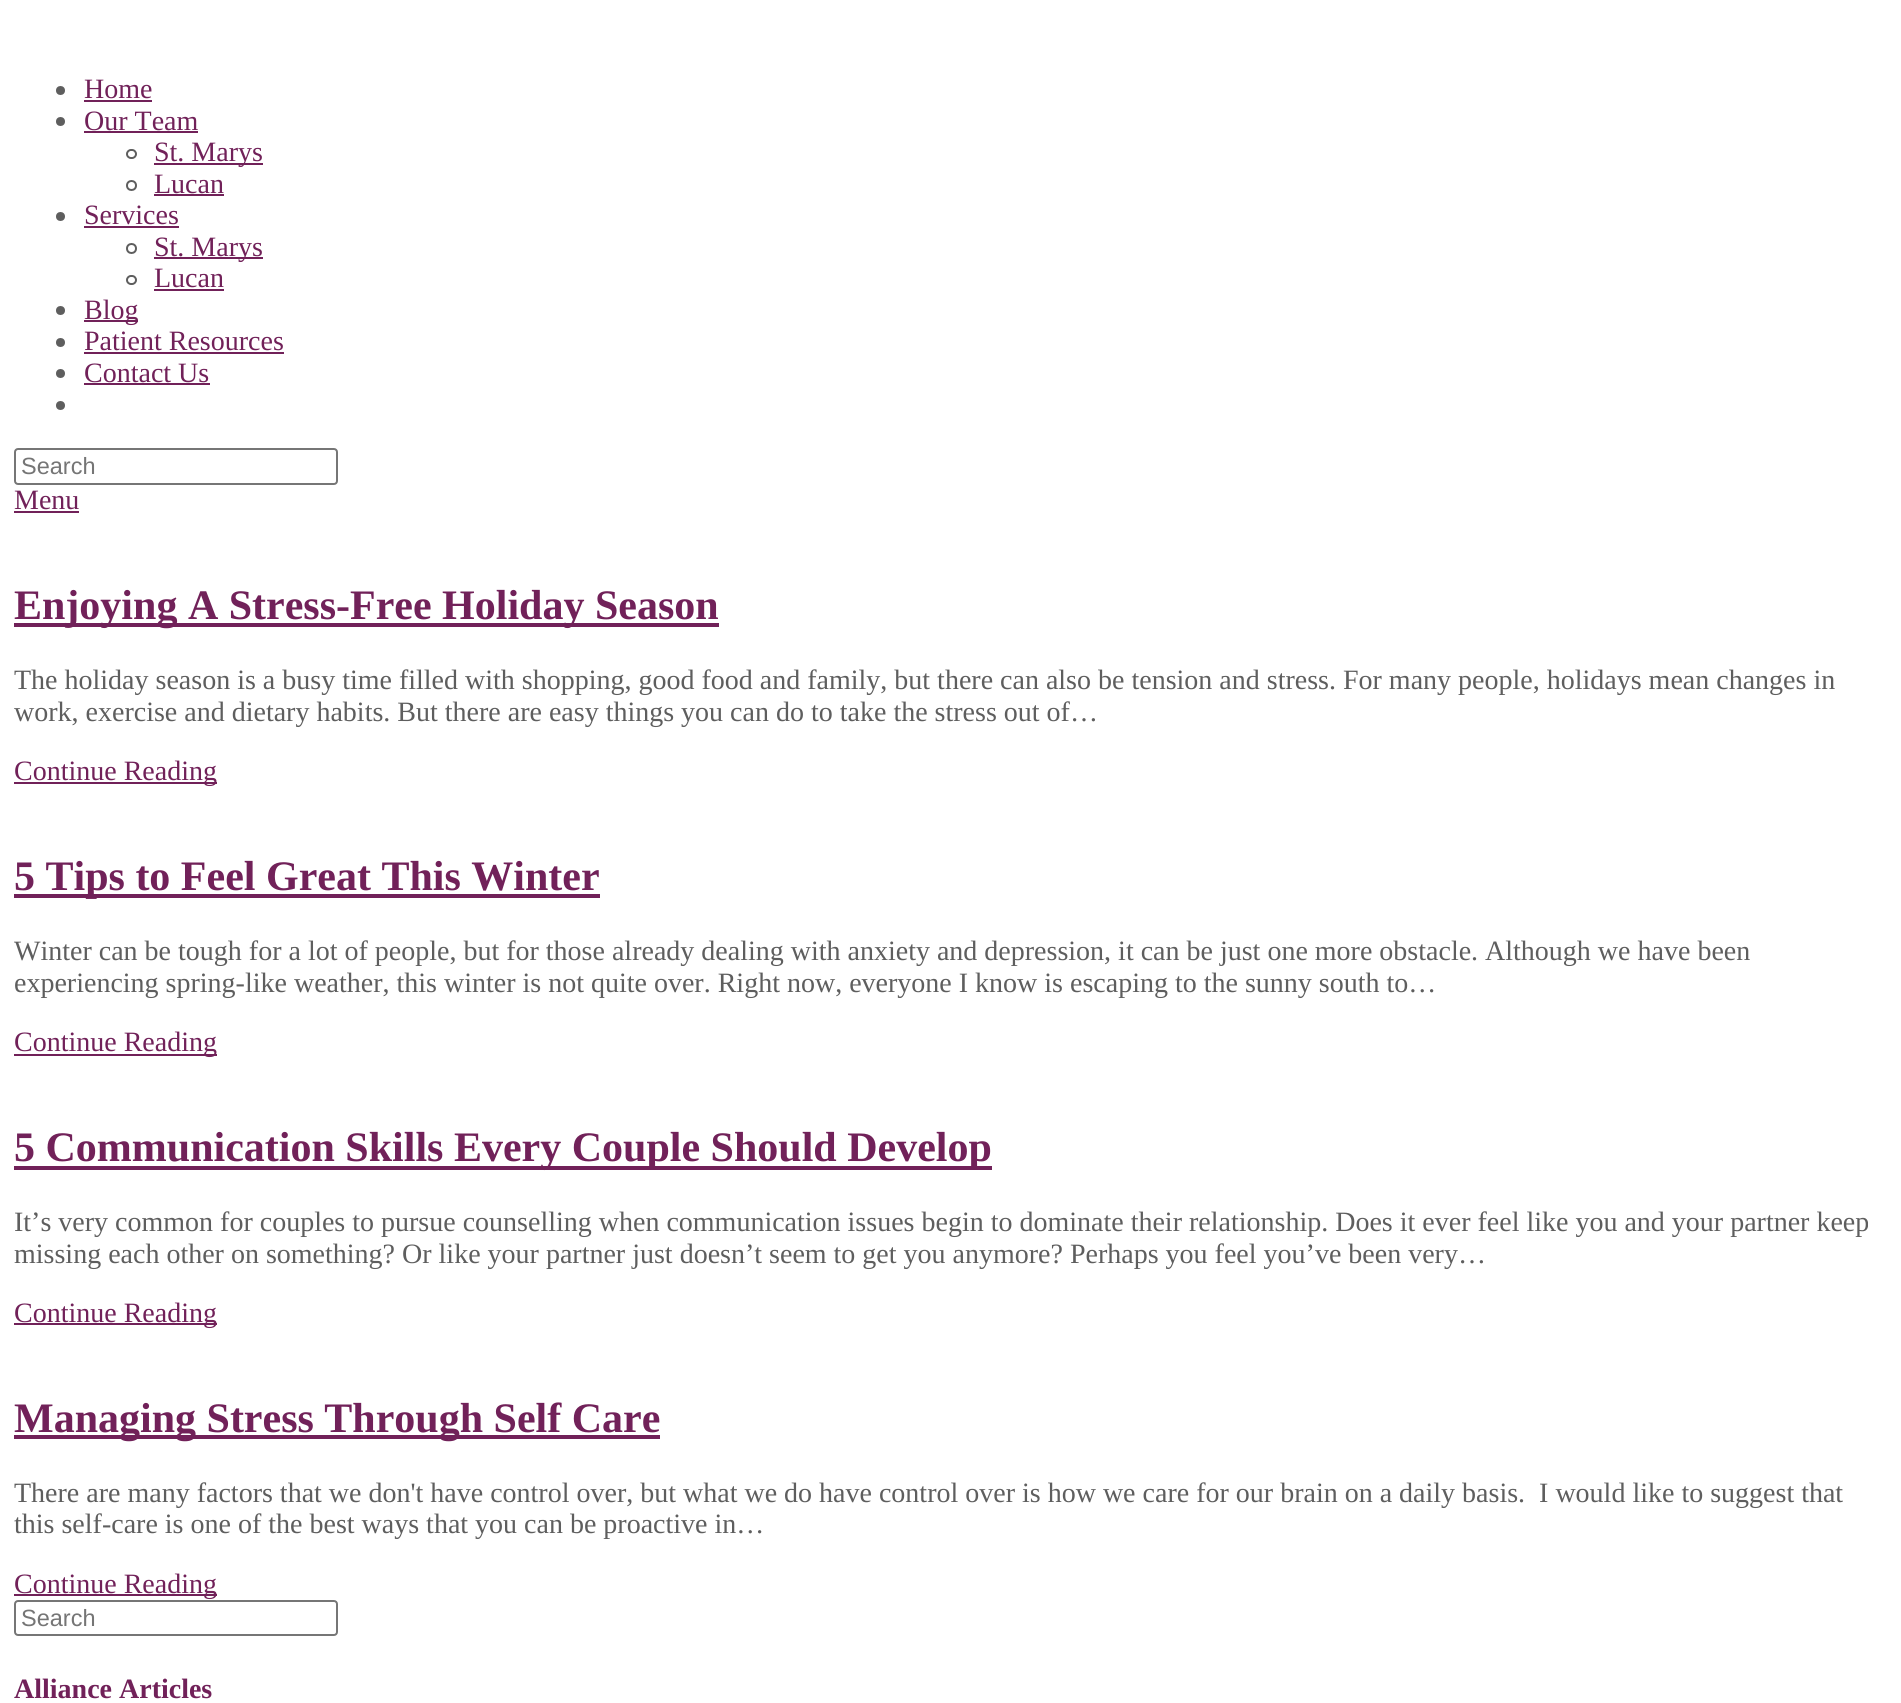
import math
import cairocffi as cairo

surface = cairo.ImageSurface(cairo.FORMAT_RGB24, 1901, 1703)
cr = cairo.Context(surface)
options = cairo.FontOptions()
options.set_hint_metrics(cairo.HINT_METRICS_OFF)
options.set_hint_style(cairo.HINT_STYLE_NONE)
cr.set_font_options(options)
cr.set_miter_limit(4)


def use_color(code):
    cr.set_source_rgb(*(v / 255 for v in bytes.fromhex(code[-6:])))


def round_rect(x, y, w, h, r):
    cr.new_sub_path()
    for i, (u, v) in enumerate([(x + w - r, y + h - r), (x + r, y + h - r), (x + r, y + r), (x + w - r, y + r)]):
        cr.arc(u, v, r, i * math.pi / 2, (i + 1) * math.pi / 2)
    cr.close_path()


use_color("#ffffff")
cr.paint()
use_color("#5e5e5e")
cr.arc(60.5, 90.5, 4.5, 0, 2 * math.pi)
cr.fill()
cr.select_font_face("Liberation Serif")
cr.set_font_size(28)
use_color("#712159")
cr.move_to(84, 98)
cr.show_text("Home")
cr.rectangle(84, 100, 68, 2)
cr.fill()
use_color("#5e5e5e")
cr.arc(60.5, 121.5, 4.5, 0, 2 * math.pi)
cr.fill()
use_color("#712159")
cr.move_to(84, 130)
cr.show_text("Our Team")
cr.rectangle(84, 131, 114, 2)
cr.fill()
round_rect(127, 150, 9, 8, 4)
use_color("#5e5e5e")
cr.stroke()
use_color("#712159")
cr.rectangle(154, 163, 109, 2)
cr.fill()
cr.move_to(154, 161)
cr.show_text("St. Marys")
cr.new_path()
cr.arc(131.5, 185.5, 4.5, 0, 2 * math.pi)
use_color("#5e5e5e")
cr.stroke()
use_color("#712159")
cr.move_to(154, 193)
cr.show_text("Lucan")
cr.rectangle(154, 194, 70, 2)
cr.fill()
use_color("#5e5e5e")
cr.arc(60.5, 216.5, 4.5, 0, 2 * math.pi)
cr.fill()
use_color("#712159")
cr.move_to(84, 224)
cr.show_text("Services")
cr.rectangle(84, 226, 95, 2)
cr.fill()
cr.arc(131.5, 248.5, 4.5, 0, 2 * math.pi)
use_color("#5e5e5e")
cr.stroke()
use_color("#712159")
cr.rectangle(154, 257, 109, 2)
cr.fill()
cr.move_to(154, 256)
cr.show_text("St. Marys")
round_rect(127, 276, 9, 8, 4)
use_color("#5e5e5e")
cr.stroke()
use_color("#712159")
cr.move_to(154, 287)
cr.show_text("Lucan")
cr.rectangle(154, 289, 70, 2)
cr.fill()
use_color("#5e5e5e")
cr.arc(60.5, 310.5, 4.5, 0, 2 * math.pi)
cr.fill()
use_color("#712159")
cr.rectangle(84, 320, 54, 2)
cr.fill()
cr.move_to(84, 319)
cr.show_text("Blog")
use_color("#5e5e5e")
cr.new_path()
cr.arc(60.5, 342.5, 4.5, 0, 2 * math.pi)
cr.fill()
use_color("#712159")
cr.move_to(84, 350)
cr.show_text("Patient Resources")
cr.rectangle(84, 352, 200, 2)
cr.fill()
use_color("#5e5e5e")
cr.arc(60.5, 373.5, 4.5, 0, 2 * math.pi)
cr.fill()
use_color("#712159")
cr.move_to(84, 382)
cr.show_text("Contact Us")
cr.rectangle(84, 383, 126, 2)
cr.fill()
use_color("#5e5e5e")
cr.arc(60.5, 405.5, 4.5, 0, 2 * math.pi)
cr.fill()
round_rect(15, 449, 322, 35, 3)
use_color("#767676")
cr.stroke()
cr.select_font_face("Liberation Sans")
cr.set_font_size(23.5)
use_color("#757575")
cr.move_to(21, 474)
cr.show_text("Search")
cr.select_font_face("Liberation Serif")
cr.set_font_size(28)
use_color("#712159")
cr.move_to(14, 509)
cr.show_text("Menu")
cr.rectangle(14, 511, 65, 2)
cr.fill()
cr.rectangle(14, 623, 705, 4)
cr.fill()
cr.select_font_face("Liberation Serif", cairo.FONT_SLANT_NORMAL, cairo.FONT_WEIGHT_BOLD)
cr.set_font_size(42)
cr.move_to(14, 619)
cr.show_text("Enjoying A Stress-Free Holiday Season")
cr.select_font_face("Liberation Serif")
cr.set_font_size(28)
use_color("#5e5e5e")
cr.move_to(14, 689)
cr.show_text("The holiday season is a busy time filled with shopping, good food and family, but there can also be tension and stress. For many people, holidays mean changes in")
cr.move_to(14, 721)
cr.show_text("work, exercise and dietary habits. But there are easy things you can do to take the stress out of…")
use_color("#712159")
cr.rectangle(14, 782, 203, 2)
cr.fill()
cr.move_to(14, 780)
cr.show_text("Continue Reading")
cr.rectangle(14, 894, 586, 4)
cr.fill()
cr.select_font_face("Liberation Serif", cairo.FONT_SLANT_NORMAL, cairo.FONT_WEIGHT_BOLD)
cr.set_font_size(42)
cr.move_to(14, 890)
cr.show_text("5 Tips to Feel Great This Winter")
cr.select_font_face("Liberation Serif")
cr.set_font_size(28)
use_color("#5e5e5e")
cr.move_to(14, 960)
cr.show_text("Winter can be tough for a lot of people, but for those already dealing with anxiety and depression, it can be just one more obstacle. Although we have been")
cr.move_to(14, 992)
cr.show_text("experiencing spring-like weather, this winter is not quite over. Right now, everyone I know is escaping to the sunny south to…")
use_color("#712159")
cr.rectangle(14, 1054, 203, 2)
cr.fill()
cr.move_to(14, 1051)
cr.show_text("Continue Reading")
cr.rectangle(14, 1166, 978, 4)
cr.fill()
cr.select_font_face("Liberation Serif", cairo.FONT_SLANT_NORMAL, cairo.FONT_WEIGHT_BOLD)
cr.set_font_size(42)
cr.move_to(14, 1161)
cr.show_text("5 Communication Skills Every Couple Should Develop")
cr.select_font_face("Liberation Serif")
cr.set_font_size(28)
use_color("#5e5e5e")
cr.move_to(14, 1231)
cr.show_text("It’s very common for couples to pursue counselling when communication issues begin to dominate their relationship. Does it ever feel like you and your partner keep")
cr.move_to(14, 1263)
cr.show_text("missing each other on something? Or like your partner just doesn’t seem to get you anymore? Perhaps you feel you’ve been very…")
use_color("#712159")
cr.rectangle(14, 1323, 203, 2)
cr.fill()
cr.move_to(14, 1322)
cr.show_text("Continue Reading")
cr.rectangle(14, 1435, 646, 4)
cr.fill()
cr.select_font_face("Liberation Serif", cairo.FONT_SLANT_NORMAL, cairo.FONT_WEIGHT_BOLD)
cr.set_font_size(42)
cr.move_to(14, 1432)
cr.show_text("Managing Stress Through Self Care")
cr.select_font_face("Liberation Serif")
cr.set_font_size(28)
use_color("#5e5e5e")
cr.move_to(14, 1502)
cr.show_text("There are many factors that we don't have control over, but what we do have control over is how we care for our brain on a daily basis.  I would like to suggest that")
cr.move_to(14, 1533)
cr.show_text("this self-care is one of the best ways that you can be proactive in…")
use_color("#712159")
cr.rectangle(14, 1594, 203, 2)
cr.fill()
cr.move_to(14, 1593)
cr.show_text("Continue Reading")
round_rect(15, 1601, 322, 34, 3)
use_color("#767676")
cr.stroke()
cr.select_font_face("Liberation Sans")
cr.set_font_size(23.5)
use_color("#757575")
cr.move_to(21, 1626)
cr.show_text("Search")
cr.select_font_face("Liberation Serif", cairo.FONT_SLANT_NORMAL, cairo.FONT_WEIGHT_BOLD)
cr.set_font_size(28)
use_color("#712159")
cr.move_to(14, 1698)
cr.show_text("Alliance Articles")
surface.write_to_png("result.png")
